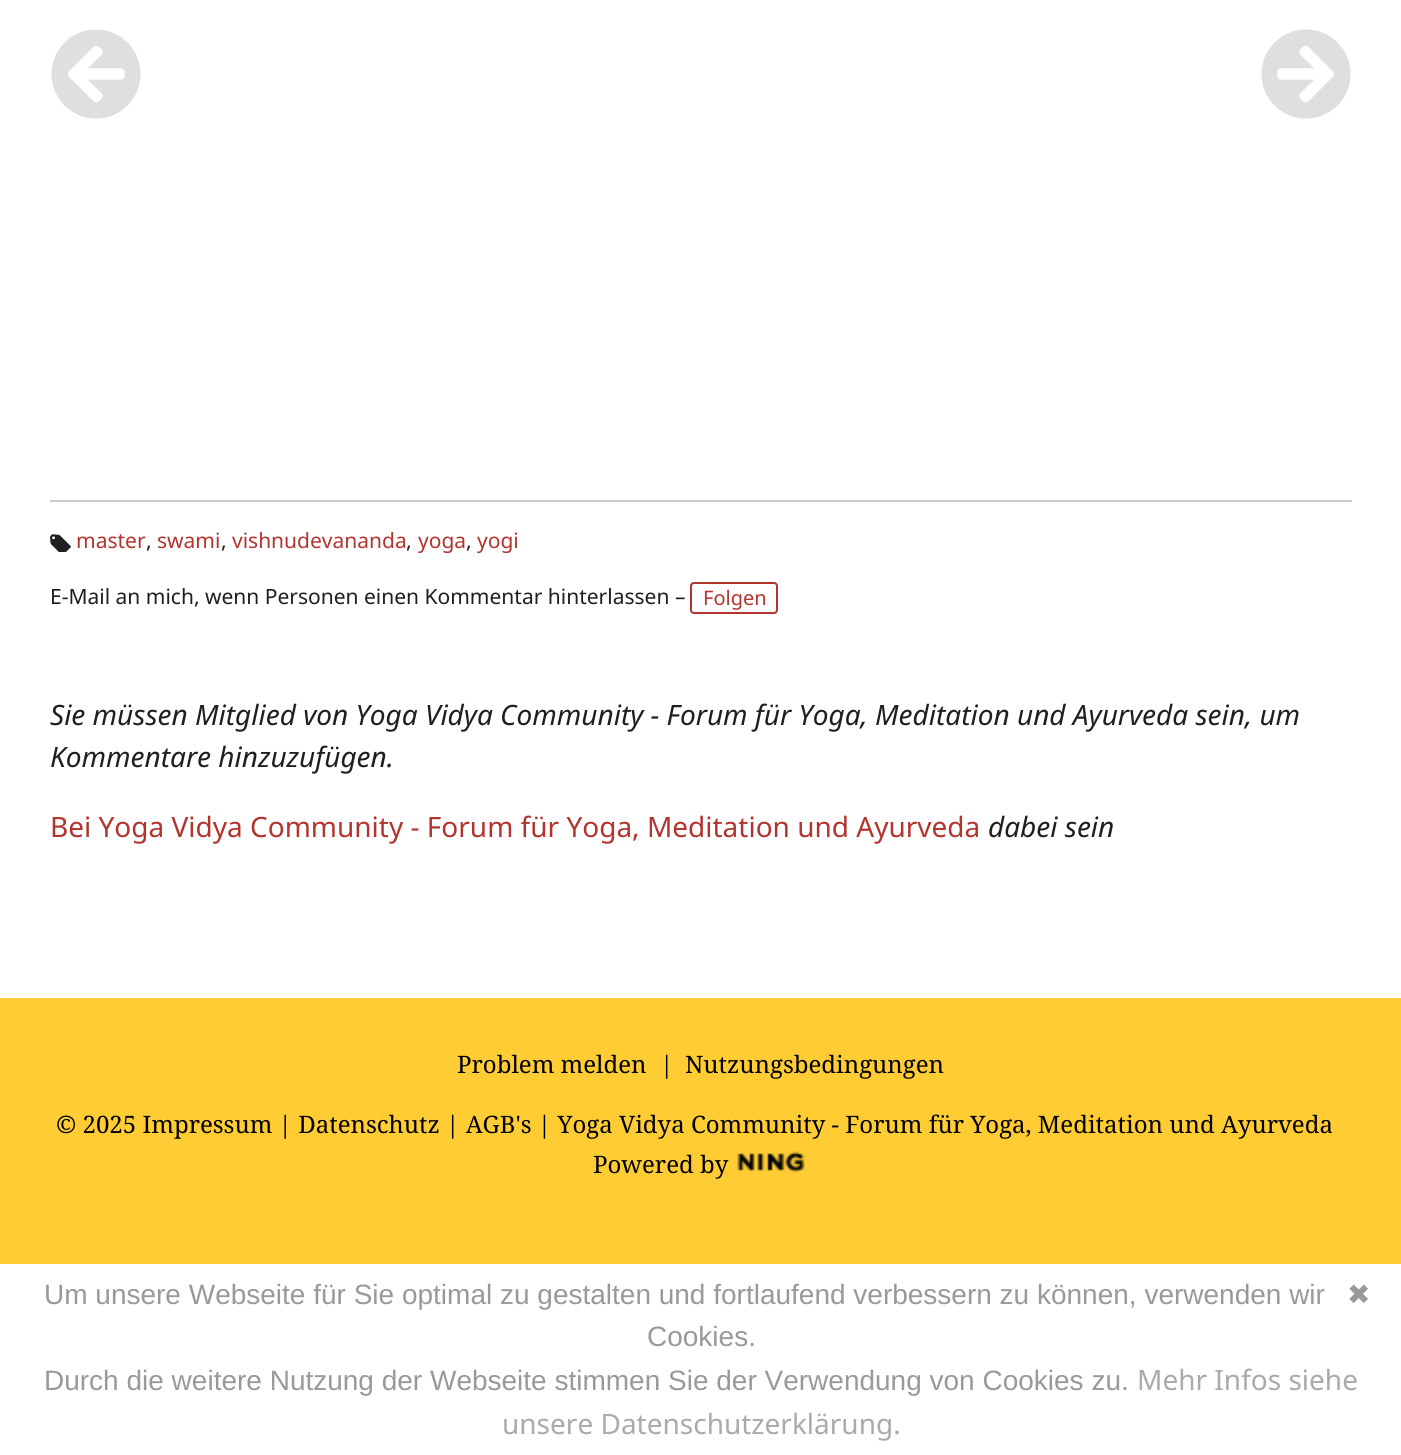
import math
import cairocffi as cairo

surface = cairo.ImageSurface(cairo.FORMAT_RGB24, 1401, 1455)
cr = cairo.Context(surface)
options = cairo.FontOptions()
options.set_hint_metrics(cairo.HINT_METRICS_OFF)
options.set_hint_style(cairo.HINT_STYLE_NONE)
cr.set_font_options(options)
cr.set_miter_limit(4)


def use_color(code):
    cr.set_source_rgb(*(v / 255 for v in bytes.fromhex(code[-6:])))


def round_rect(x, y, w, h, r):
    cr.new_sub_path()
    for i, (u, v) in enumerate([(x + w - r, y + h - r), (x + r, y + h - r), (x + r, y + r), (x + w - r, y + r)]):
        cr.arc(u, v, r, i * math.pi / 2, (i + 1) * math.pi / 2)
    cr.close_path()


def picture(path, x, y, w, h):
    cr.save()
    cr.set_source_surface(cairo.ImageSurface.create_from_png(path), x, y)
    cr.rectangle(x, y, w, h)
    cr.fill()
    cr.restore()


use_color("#ffcc33")
cr.paint()
use_color("#ffffff")
cr.rectangle(0, 0, 1401, 998)
cr.fill()
picture("img1.png", 51, 29, 90, 90)
picture("img2.png", 1261, 29, 90, 90)
use_color("#cccccc")
cr.rectangle(50, 500, 1302, 2)
cr.fill()
picture("img3.png", 50, 534, 21, 18)
cr.select_font_face("Noto Sans")
cr.set_font_size(21)
use_color("#b3342e")
cr.move_to(76, 548)
cr.show_text("master")
use_color("#1f1f1f")
cr.move_to(146, 548)
cr.show_text(",")
use_color("#b3342e")
cr.move_to(157, 548)
cr.show_text("swami")
use_color("#1f1f1f")
cr.move_to(221, 548)
cr.show_text(",")
use_color("#b3342e")
cr.move_to(232, 548)
cr.show_text("vishnudevananda")
use_color("#1f1f1f")
cr.move_to(406, 548)
cr.show_text(",")
use_color("#b3342e")
cr.move_to(418, 548)
cr.show_text("yoga")
use_color("#1f1f1f")
cr.move_to(466, 548)
cr.show_text(",")
use_color("#b3342e")
cr.move_to(477, 548)
cr.show_text("yogi")
use_color("#1f1f1f")
cr.move_to(50, 604)
cr.show_text("E-Mail an mich, wenn Personen einen Kommentar hinterlassen –")
round_rect(691, 583, 86, 30, 3)
use_color("#b3342e")
cr.stroke()
cr.set_font_size(20)
cr.move_to(703, 605)
cr.show_text("Folgen")
cr.select_font_face("Noto Sans", cairo.FONT_SLANT_ITALIC)
cr.set_font_size(28)
use_color("#1f1f1f")
cr.move_to(50, 725)
cr.show_text("Sie müssen Mitglied von Yoga Vidya Community - Forum für Yoga, Meditation und Ayurveda sein, um")
cr.move_to(50, 767)
cr.show_text("Kommentare hinzuzufügen.")
cr.select_font_face("Noto Sans")
use_color("#b3342e")
cr.move_to(50, 837)
cr.show_text("Bei Yoga Vidya Community - Forum für Yoga, Meditation und Ayurveda")
cr.select_font_face("Noto Sans", cairo.FONT_SLANT_ITALIC)
use_color("#1f1f1f")
cr.move_to(988, 837)
cr.show_text("dabei sein")
cr.select_font_face("Noto Serif")
cr.set_font_size(24)
use_color("#000000")
cr.move_to(457, 1073)
cr.show_text("Problem melden")
cr.move_to(660, 1073)
cr.show_text("|")
cr.move_to(685, 1073)
cr.show_text("Nutzungsbedingungen")
cr.move_to(56, 1133)
cr.show_text("© 2025 Impressum | Datenschutz | AGB's | Yoga Vidya Community - Forum für Yoga, Meditation und Ayurveda")
cr.move_to(593, 1173)
cr.show_text("Powered by")
picture("img4.png", 737, 1151, 68, 22)
use_color("#ffffff")
cr.rectangle(0, 1264, 1401, 191)
cr.fill()
cr.select_font_face("Liberation Sans")
cr.set_font_size(28)
use_color("#999999")
cr.move_to(44, 1304)
cr.show_text("Um unsere Webseite für Sie optimal zu gestalten und fortlaufend verbessern zu können, verwenden wir")
cr.select_font_face("DejaVu Sans")
cr.move_to(1347, 1304)
cr.show_text("✖")
cr.select_font_face("Liberation Sans")
cr.move_to(647, 1346)
cr.show_text("Cookies.")
cr.move_to(44, 1390)
cr.show_text("Durch die weitere Nutzung der Webseite stimmen Sie der Verwendung von Cookies zu.")
cr.select_font_face("Noto Sans")
use_color("#aaaaaa")
cr.move_to(1137, 1390)
cr.show_text("Mehr Infos siehe")
cr.move_to(502, 1434)
cr.show_text("unsere Datenschutzerklärung.")
surface.write_to_png("result.png")
